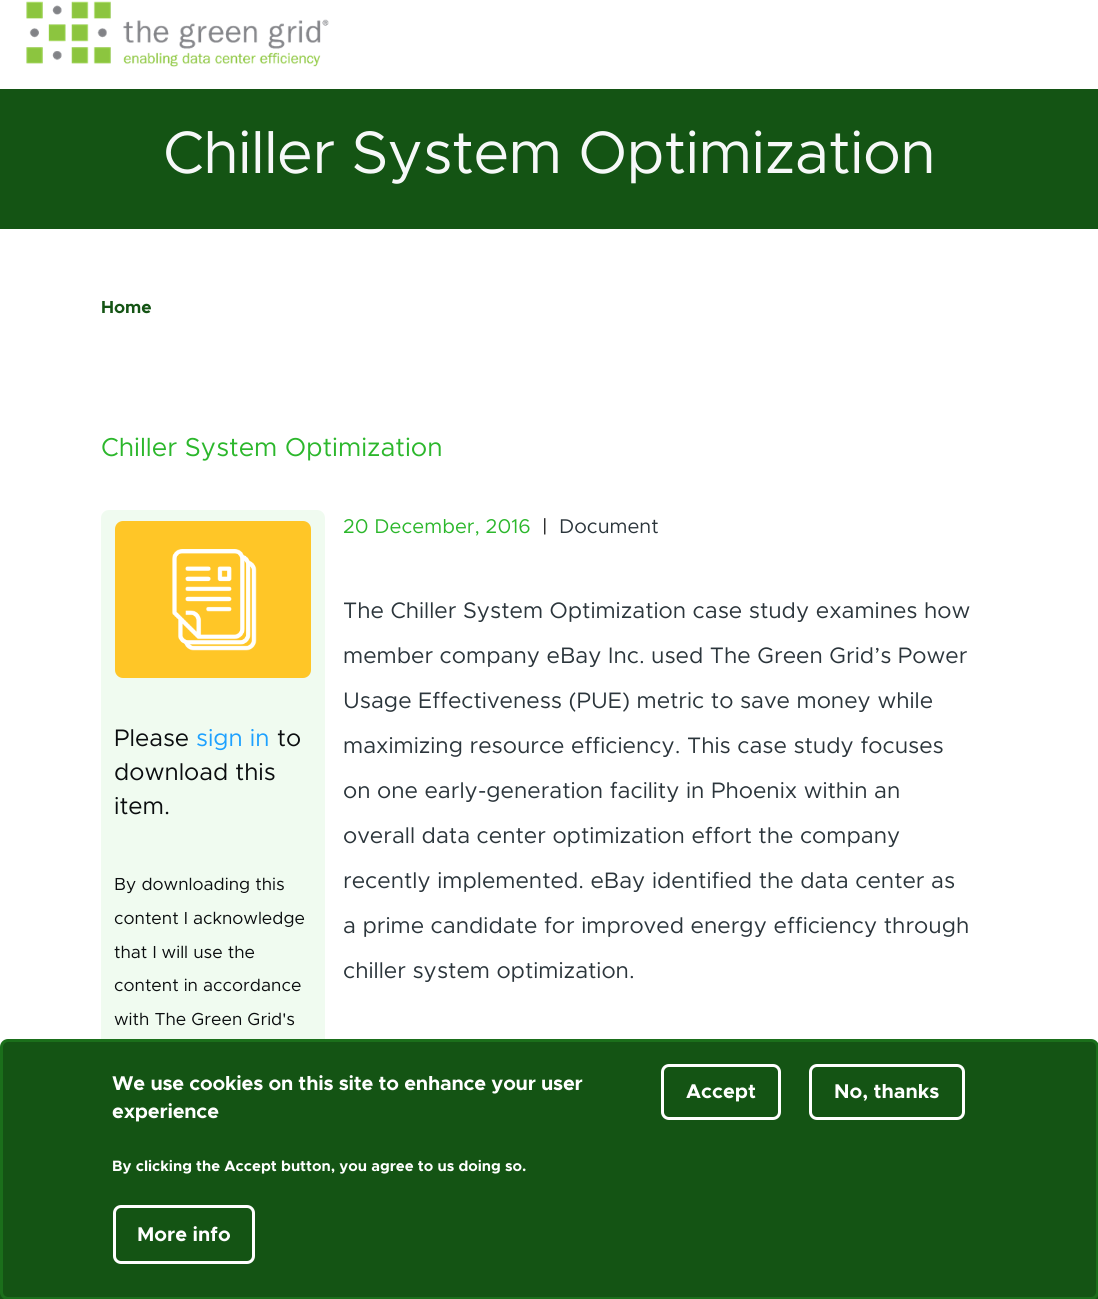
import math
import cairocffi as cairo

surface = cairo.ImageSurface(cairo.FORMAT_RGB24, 1098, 1299)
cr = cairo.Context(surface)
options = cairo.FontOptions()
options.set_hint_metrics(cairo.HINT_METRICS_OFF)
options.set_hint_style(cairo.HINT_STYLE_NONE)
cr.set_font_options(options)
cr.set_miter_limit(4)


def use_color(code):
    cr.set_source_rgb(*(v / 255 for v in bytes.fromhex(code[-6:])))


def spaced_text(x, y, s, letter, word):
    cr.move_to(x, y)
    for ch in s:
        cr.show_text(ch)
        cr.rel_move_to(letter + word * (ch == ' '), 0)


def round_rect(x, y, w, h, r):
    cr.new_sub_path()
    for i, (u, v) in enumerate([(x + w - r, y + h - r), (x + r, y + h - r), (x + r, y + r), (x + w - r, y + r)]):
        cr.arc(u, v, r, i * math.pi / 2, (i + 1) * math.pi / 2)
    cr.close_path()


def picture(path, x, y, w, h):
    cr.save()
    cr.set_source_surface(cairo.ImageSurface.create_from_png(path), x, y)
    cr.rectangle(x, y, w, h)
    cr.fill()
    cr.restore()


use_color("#ffffff")
cr.paint()
picture("img1.png", 26, 1, 303, 66)
use_color("#145414")
cr.rectangle(0, 89, 1098, 140)
cr.fill()
cr.select_font_face("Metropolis")
cr.set_font_size(60)
use_color("#f6f8f8")
spaced_text(163, 173, "Chiller System Optimization", -0.6, 0)
cr.select_font_face("Metropolis", cairo.FONT_SLANT_NORMAL, cairo.FONT_WEIGHT_BOLD)
cr.set_font_size(17.5)
use_color("#145414")
cr.move_to(101, 313)
cr.show_text("Home")
cr.select_font_face("Metropolis")
cr.set_font_size(26)
use_color("#2cb72c")
cr.move_to(101, 456)
cr.show_text("Chiller System Optimization")
use_color("#f0fbf0")
round_rect(101, 510, 224, 606, 8)
cr.fill()
use_color("#ffc627")
round_rect(115, 521, 196, 157, 8)
cr.fill()
picture("img2.png", 172, 549, 85, 102)
cr.set_font_size(24)
use_color("#0b0d0f")
cr.move_to(114, 746)
cr.show_text("Please")
use_color("#1ea1ff")
cr.move_to(196, 746)
cr.show_text("sign in")
use_color("#0b0d0f")
cr.move_to(277, 746)
cr.show_text("to")
cr.move_to(114, 780)
cr.show_text("download this")
cr.move_to(114, 814)
cr.show_text("item.")
cr.set_font_size(17.5)
cr.move_to(114, 890)
cr.show_text("By downloading this")
cr.move_to(114, 924)
cr.show_text("content I acknowledge")
cr.move_to(114, 958)
cr.show_text("that I will use the")
cr.move_to(114, 991)
cr.show_text("content in accordance")
cr.move_to(114, 1025)
cr.show_text("with The Green Grid's")
cr.set_font_size(20)
use_color("#2cb72c")
cr.move_to(343, 533)
cr.show_text("20 December, 2016")
use_color("#000000")
cr.move_to(542, 533)
cr.show_text("|")
use_color("#2b353b")
cr.move_to(559, 533)
cr.show_text("Document")
cr.set_font_size(22.5)
cr.move_to(343, 618)
cr.show_text("The Chiller System Optimization case study examines how")
cr.move_to(343, 663)
cr.show_text("member company eBay Inc. used The Green Grid’s Power")
cr.move_to(343, 708)
cr.show_text("Usage Effectiveness (PUE) metric to save money while")
cr.move_to(343, 753)
cr.show_text("maximizing resource efficiency. This case study focuses")
cr.move_to(343, 798)
cr.show_text("on one early-generation facility in Phoenix within an")
cr.move_to(343, 843)
cr.show_text("overall data center optimization effort the company")
cr.move_to(343, 888)
cr.show_text("recently implemented. eBay identified the data center as")
cr.move_to(343, 933)
cr.show_text("a prime candidate for improved energy efficiency through")
cr.move_to(343, 978)
cr.show_text("chiller system optimization.")
use_color("#145414")
cr.rectangle(0, 1292, 1098, 7)
cr.fill()
round_rect(1.5, 1040.5, 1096, 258, 6.5)
cr.fill_preserve()
use_color("#1b6f1b")
cr.set_line_width(3)
cr.stroke()
cr.select_font_face("Metropolis", cairo.FONT_SLANT_NORMAL, cairo.FONT_WEIGHT_BOLD)
cr.set_font_size(20)
use_color("#ffffff")
spaced_text(112, 1090, "We use cookies on this site to enhance your user", -0.2, 0)
spaced_text(112, 1118, "experience", -0.2, 0)
cr.set_font_size(15)
cr.move_to(112, 1171)
cr.show_text("By clicking the Accept button, you agree to us doing so.")
round_rect(114.5, 1206.5, 139, 56, 6.5)
cr.stroke()
cr.set_font_size(20)
cr.move_to(137, 1241)
cr.show_text("More info")
round_rect(662.5, 1065.5, 117, 53, 6.5)
cr.stroke()
cr.move_to(686, 1098)
cr.show_text("Accept")
round_rect(810.5, 1065.5, 153, 53, 6.5)
cr.stroke()
cr.move_to(834, 1098)
cr.show_text("No, thanks")
surface.write_to_png("result.png")
